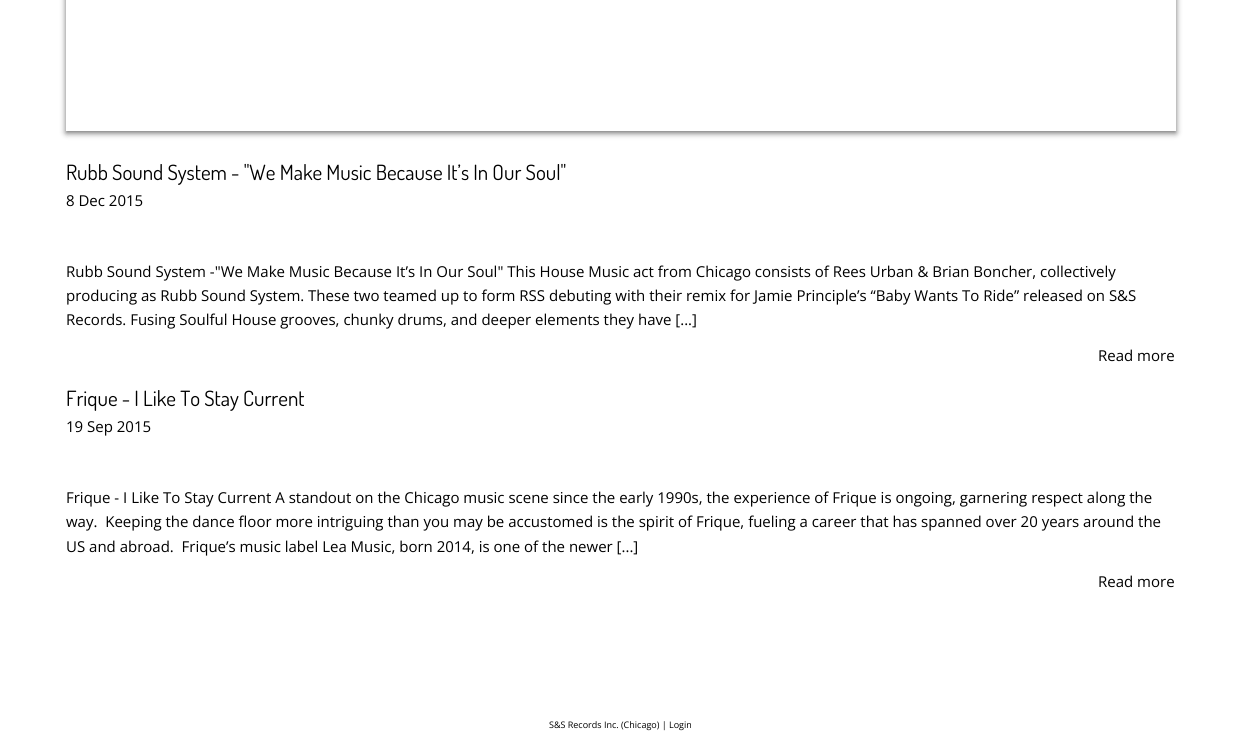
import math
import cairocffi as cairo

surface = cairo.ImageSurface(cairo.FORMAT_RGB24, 1241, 738)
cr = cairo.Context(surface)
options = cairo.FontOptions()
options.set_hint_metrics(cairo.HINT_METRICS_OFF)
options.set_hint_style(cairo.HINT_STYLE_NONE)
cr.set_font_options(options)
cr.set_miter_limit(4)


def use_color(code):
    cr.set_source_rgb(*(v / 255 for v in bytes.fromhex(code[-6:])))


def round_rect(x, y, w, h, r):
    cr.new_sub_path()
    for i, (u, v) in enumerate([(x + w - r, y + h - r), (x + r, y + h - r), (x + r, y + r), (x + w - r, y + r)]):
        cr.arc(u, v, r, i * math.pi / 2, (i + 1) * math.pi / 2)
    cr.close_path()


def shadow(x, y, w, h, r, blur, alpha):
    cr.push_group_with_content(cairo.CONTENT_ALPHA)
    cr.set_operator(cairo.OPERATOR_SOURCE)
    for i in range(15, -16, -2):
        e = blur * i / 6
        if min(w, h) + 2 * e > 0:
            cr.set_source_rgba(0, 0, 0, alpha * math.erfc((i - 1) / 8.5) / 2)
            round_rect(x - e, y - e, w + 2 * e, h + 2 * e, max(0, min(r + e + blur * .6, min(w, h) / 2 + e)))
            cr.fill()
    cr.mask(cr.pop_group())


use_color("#ffffff")
cr.paint()
cr.save()
cr.set_fill_rule(cairo.FILL_RULE_EVEN_ODD)
cr.new_path()
cr.move_to(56, 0)
cr.line_to(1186, 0)
cr.line_to(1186, 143)
cr.line_to(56, 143)
cr.close_path()
cr.move_to(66, -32)
cr.line_to(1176, -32)
cr.line_to(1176, 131)
cr.line_to(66, 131)
cr.close_path()
cr.clip()
use_color("#0a0a0a")
shadow(66, -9, 1110, 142, 0, 3, 0.6)
cr.restore()
cr.select_font_face("Dosis")
cr.set_font_size(21)
use_color("#000000")
cr.move_to(66, 180)
cr.show_text("Rubb Sound System - \"We Make Music Because It’s In Our Soul\"")
cr.select_font_face("Open Sans")
cr.set_font_size(15)
cr.move_to(66, 206)
cr.show_text("8 Dec 2015")
cr.move_to(66, 277)
cr.show_text("Rubb Sound System -\"We Make Music Because It’s In Our Soul\" This House Music act from Chicago consists of Rees Urban & Brian Boncher, collectively")
cr.move_to(66, 301)
cr.show_text("producing as Rubb Sound System. These two teamed up to form RSS debuting with their remix for Jamie Principle’s “Baby Wants To Ride” released on S&S")
cr.move_to(66, 325)
cr.show_text("Records. Fusing Soulful House grooves, chunky drums, and deeper elements they have [...]")
cr.move_to(1098, 361)
cr.show_text("Read more")
cr.select_font_face("Dosis")
cr.set_font_size(21)
cr.move_to(66, 406)
cr.show_text("Frique - I Like To Stay Current")
cr.select_font_face("Open Sans")
cr.set_font_size(15)
cr.move_to(66, 432)
cr.show_text("19 Sep 2015")
cr.move_to(66, 503)
cr.show_text("Frique - I Like To Stay Current A standout on the Chicago music scene since the early 1990s, the experience of Frique is ongoing, garnering respect along the")
cr.move_to(66, 527)
cr.show_text("way.  Keeping the dance floor more intriguing than you may be accustomed is the spirit of Frique, fueling a career that has spanned over 20 years around the")
cr.move_to(66, 552)
cr.show_text("US and abroad.  Frique’s music label Lea Music, born 2014, is one of the newer [...]")
cr.move_to(1098, 587)
cr.show_text("Read more")
cr.set_font_size(9)
cr.move_to(549, 728)
cr.show_text("S&S Records Inc. (Chicago) | Login")
surface.write_to_png("result.png")
